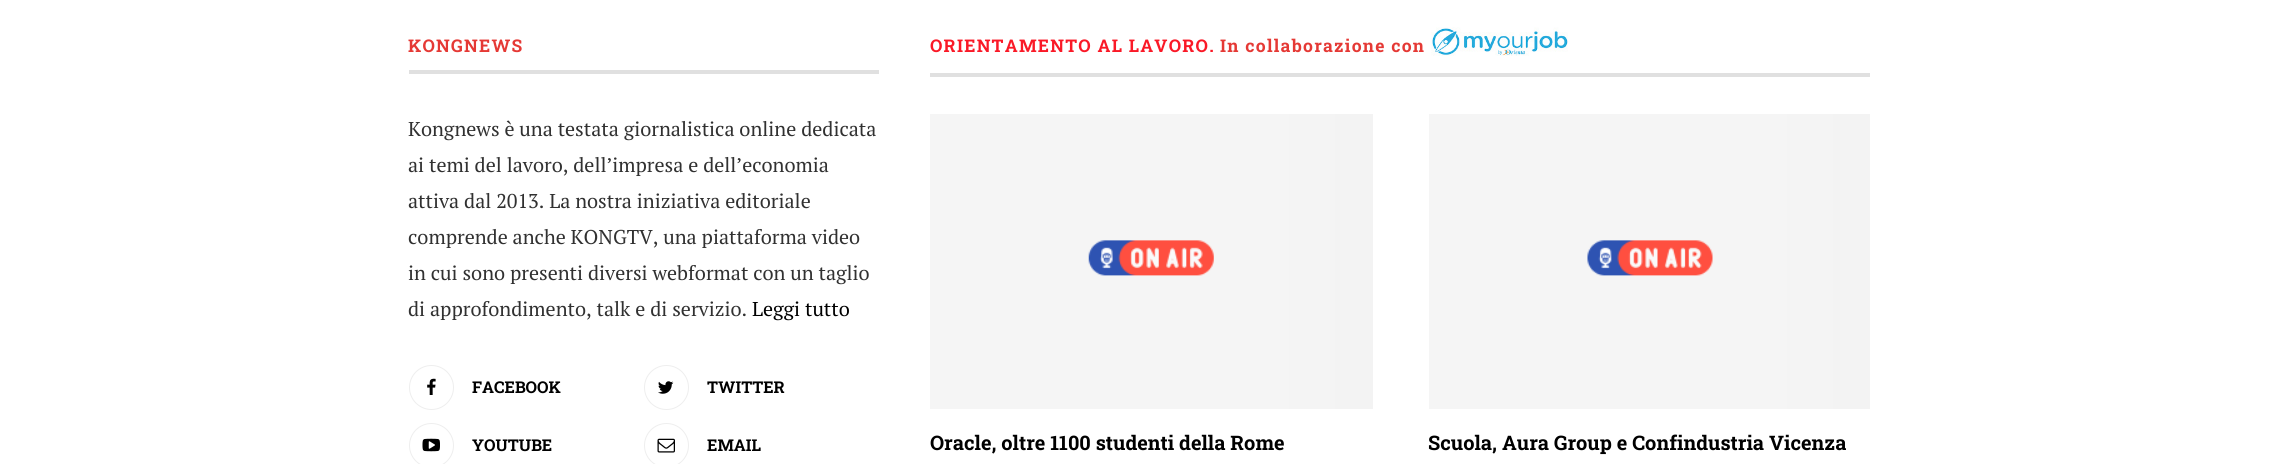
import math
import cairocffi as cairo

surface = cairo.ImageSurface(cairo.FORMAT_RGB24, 2278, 464)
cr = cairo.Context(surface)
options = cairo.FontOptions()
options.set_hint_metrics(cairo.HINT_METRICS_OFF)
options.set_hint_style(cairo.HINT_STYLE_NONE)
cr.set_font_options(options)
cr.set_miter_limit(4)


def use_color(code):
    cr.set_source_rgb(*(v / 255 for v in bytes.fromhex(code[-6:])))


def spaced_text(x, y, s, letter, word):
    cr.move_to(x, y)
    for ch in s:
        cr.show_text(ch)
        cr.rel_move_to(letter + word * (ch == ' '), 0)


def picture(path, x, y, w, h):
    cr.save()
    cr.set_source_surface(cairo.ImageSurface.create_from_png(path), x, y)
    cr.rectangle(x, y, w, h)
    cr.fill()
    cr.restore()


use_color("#ffffff")
cr.paint()
use_color("#e0e0e0")
cr.rectangle(409, 70, 470, 4)
cr.fill()
cr.select_font_face("Roboto Slab", cairo.FONT_SLANT_NORMAL, cairo.FONT_WEIGHT_BOLD)
cr.set_font_size(17.5)
use_color("#e53935")
spaced_text(408, 52, "KONGNEWS", 1.25, 0)
cr.select_font_face("PT Serif")
cr.set_font_size(20)
use_color("#313131")
cr.move_to(408, 136)
cr.show_text("Kongnews è una testata giornalistica online dedicata")
cr.move_to(408, 172)
cr.show_text("ai temi del lavoro, dell’impresa e dell’economia")
cr.move_to(408, 208)
cr.show_text("attiva dal 2013. La nostra iniziativa editoriale")
cr.move_to(408, 244)
cr.show_text("comprende anche KONGTV, una piattaforma video")
cr.move_to(408, 280)
cr.show_text("in cui sono presenti diversi webformat con un taglio")
cr.move_to(408, 316)
cr.show_text("di approfondimento, talk e di servizio.")
use_color("#000000")
cr.move_to(752, 316)
cr.show_text("Leggi tutto")
cr.new_path()
cr.arc(431.5, 387.5, 22, 0, 2 * math.pi)
use_color("#eeeeee")
cr.set_line_width(1)
cr.stroke()
picture("img1.png", 427, 378, 9, 17)
cr.select_font_face("Roboto Slab", cairo.FONT_SLANT_NORMAL, cairo.FONT_WEIGHT_BOLD)
cr.set_font_size(16.25)
use_color("#000000")
cr.move_to(472, 393)
cr.show_text("FACEBOOK")
cr.new_path()
cr.arc(666.5, 387.5, 22, 0, 2 * math.pi)
use_color("#eeeeee")
cr.stroke()
picture("img2.png", 658, 381, 16, 13)
use_color("#000000")
cr.move_to(707, 393)
cr.show_text("TWITTER")
cr.new_path()
cr.arc(431.5, 445.5, 22, 0, 2 * math.pi)
use_color("#eeeeee")
cr.stroke()
picture("img3.png", 422, 438, 18, 14)
use_color("#000000")
cr.move_to(472, 451)
cr.show_text("YOUTUBE")
cr.new_path()
cr.arc(666.5, 445.5, 22, 0, 2 * math.pi)
use_color("#eeeeee")
cr.stroke()
picture("img4.png", 657, 438, 18, 15)
use_color("#000000")
cr.move_to(707, 451)
cr.show_text("EMAIL")
use_color("#e0e0e0")
cr.rectangle(930, 73, 940, 4)
cr.fill()
cr.set_font_size(17.5)
use_color("#fa1927")
spaced_text(930, 52, "ORIENTAMENTO AL LAVORO.", 1.25, 0)
use_color("#e53935")
spaced_text(1220, 52, "In collaborazione con", 1.25, 0)
picture("img5.png", 1431, 27, 137, 29)
gradient = cairo.LinearGradient(1714, 261, 589, 261)
gradient.add_color_stop_rgba(0, 0.961, 0.961, 0.961, 1)
gradient.add_color_stop_rgba(0.15, 0.937, 0.937, 0.937, 1)
gradient.add_color_stop_rgba(0.4, 0.961, 0.961, 0.961, 1)
gradient.add_color_stop_rgba(1, 0.961, 0.961, 0.961, 1)
cr.set_source(gradient)
cr.rectangle(930, 114, 443, 295)
cr.fill()
picture("img6.png", 1088, 240, 126, 36)
cr.set_font_size(20)
use_color("#000000")
cr.move_to(930, 450)
cr.show_text("Oracle, oltre 1100 studenti della Rome")
gradient = cairo.LinearGradient(2212, 261, 1087, 261)
gradient.add_color_stop_rgba(0, 0.961, 0.961, 0.961, 1)
gradient.add_color_stop_rgba(0.15, 0.937, 0.937, 0.937, 1)
gradient.add_color_stop_rgba(0.4, 0.961, 0.961, 0.961, 1)
gradient.add_color_stop_rgba(1, 0.961, 0.961, 0.961, 1)
cr.set_source(gradient)
cr.rectangle(1429, 114, 441, 295)
cr.fill()
picture("img7.png", 1587, 240, 126, 36)
use_color("#000000")
cr.move_to(1428, 450)
cr.show_text("Scuola, Aura Group e Confindustria Vicenza")
surface.write_to_png("result.png")
